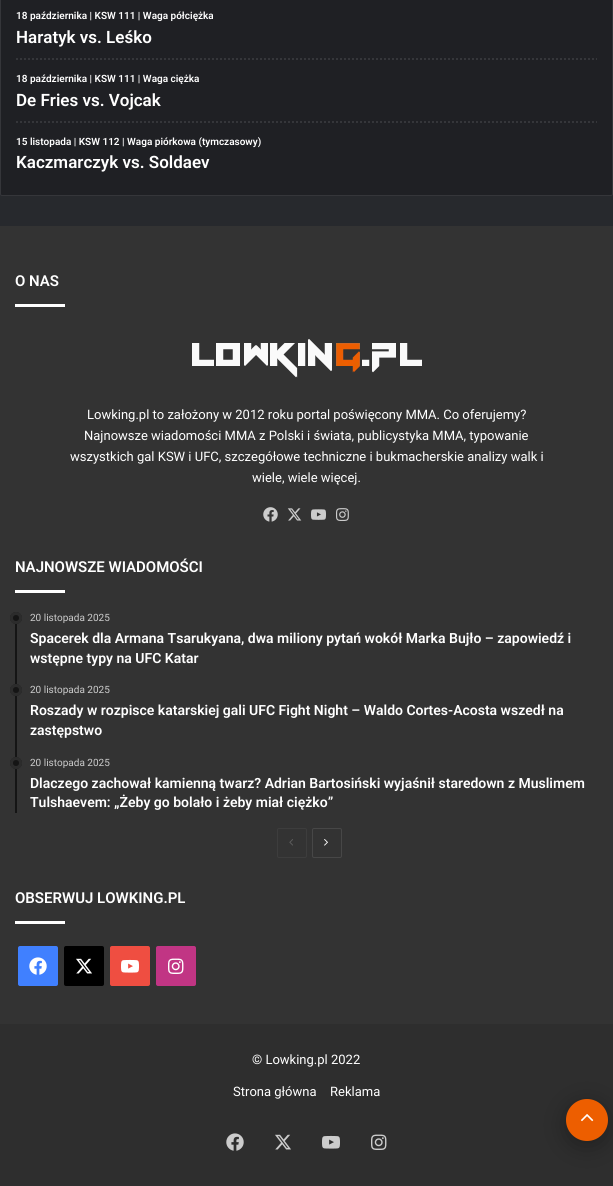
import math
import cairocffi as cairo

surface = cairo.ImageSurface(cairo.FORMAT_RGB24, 613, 1186)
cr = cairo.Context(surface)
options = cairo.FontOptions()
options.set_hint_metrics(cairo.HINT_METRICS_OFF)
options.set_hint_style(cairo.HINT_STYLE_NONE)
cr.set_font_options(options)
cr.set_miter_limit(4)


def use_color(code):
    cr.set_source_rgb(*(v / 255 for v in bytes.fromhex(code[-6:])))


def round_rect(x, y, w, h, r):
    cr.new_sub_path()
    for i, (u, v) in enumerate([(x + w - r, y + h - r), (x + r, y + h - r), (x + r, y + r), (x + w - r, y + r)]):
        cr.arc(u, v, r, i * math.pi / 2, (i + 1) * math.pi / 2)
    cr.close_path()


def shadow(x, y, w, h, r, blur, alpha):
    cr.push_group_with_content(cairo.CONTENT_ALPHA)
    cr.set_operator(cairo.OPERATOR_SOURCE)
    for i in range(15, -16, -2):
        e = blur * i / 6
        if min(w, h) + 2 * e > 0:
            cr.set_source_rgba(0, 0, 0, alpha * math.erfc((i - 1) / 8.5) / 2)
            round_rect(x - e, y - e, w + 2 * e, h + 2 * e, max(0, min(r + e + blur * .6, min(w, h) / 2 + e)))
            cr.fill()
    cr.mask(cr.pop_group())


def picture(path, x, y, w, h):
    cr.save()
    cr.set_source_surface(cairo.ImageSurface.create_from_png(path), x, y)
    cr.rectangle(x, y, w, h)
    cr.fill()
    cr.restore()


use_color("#27292d")
cr.paint()
use_color("#1f2024")
round_rect(0.5, -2.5, 612, 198, 1.5)
cr.fill_preserve()
use_color("#35363a")
cr.set_line_width(1)
cr.stroke()
cr.select_font_face("Roboto SemiBold")
cr.set_font_size(10)
use_color("#ffffff")
cr.move_to(16, 19)
cr.show_text("18 października | KSW 111 | Waga półciężka")
cr.set_font_size(17)
cr.move_to(16, 43)
cr.show_text("Haratyk vs. Leśko")
cr.new_path()
cr.move_to(16, 59)
cr.line_to(597, 59)
use_color("#35363a")
cr.set_line_width(2)
cr.set_dash([2, 2])
cr.stroke()
cr.set_font_size(10)
use_color("#ffffff")
cr.move_to(16, 82)
cr.show_text("18 października | KSW 111 | Waga ciężka")
cr.set_font_size(17)
cr.move_to(16, 106)
cr.show_text("De Fries vs. Vojcak")
cr.new_path()
cr.move_to(16, 122)
cr.line_to(597, 122)
use_color("#35363a")
cr.stroke()
cr.set_font_size(10)
use_color("#ffffff")
cr.move_to(16, 145)
cr.show_text("15 listopada | KSW 112 | Waga piórkowa (tymczasowy)")
cr.set_font_size(17)
cr.move_to(16, 168)
cr.show_text("Kaczmarczyk vs. Soldaev")
use_color("#333333")
cr.rectangle(0, 226, 613, 798)
cr.fill()
cr.set_font_size(15)
use_color("#ffffff")
cr.move_to(15, 286)
cr.show_text("O NAS")
cr.rectangle(15, 304, 50, 3)
cr.fill()
picture("img1.png", 192, 339, 230, 39)
cr.select_font_face("Roboto")
cr.set_font_size(13)
cr.move_to(87, 419)
cr.show_text("Lowking.pl to założony w 2012 roku portal poświęcony MMA. Co oferujemy?")
cr.move_to(84, 440)
cr.show_text("Najnowsze wiadomości MMA z Polski i świata, publicystyka MMA, typowanie")
cr.move_to(70, 461)
cr.show_text("wszystkich gal KSW i UFC, szczegółowe techniczne i bukmacherskie analizy walk i")
cr.move_to(252, 482)
cr.show_text("wiele, wiele więcej.")
picture("img2.png", 263, 507, 15, 15)
picture("img3.png", 287, 508, 15, 13)
picture("img4.png", 311, 509, 15, 11)
picture("img5.png", 336, 508, 13, 13)
cr.select_font_face("Roboto SemiBold")
cr.set_font_size(15)
cr.move_to(15, 572)
cr.show_text("NAJNOWSZE WIADOMOŚCI")
cr.rectangle(15, 590, 50, 3)
cr.fill()
use_color("#151515")
cr.rectangle(15, 612, 2, 201)
cr.fill()
cr.arc(16, 618, 6, 0, 2 * math.pi)
cr.fill()
cr.arc(16, 618, 4.5, 0, 2 * math.pi)
cr.set_source_rgba(0.2, 0.2, 0.2, 0.8)
cr.set_line_width(3)
cr.set_dash([])
cr.stroke()
cr.select_font_face("Roboto")
cr.set_font_size(10)
use_color("#cccccc")
cr.move_to(30, 621)
cr.show_text("20 listopada 2025")
cr.select_font_face("Roboto SemiBold")
cr.set_font_size(14)
use_color("#ffffff")
cr.move_to(30, 643)
cr.show_text("Spacerek dla Armana Tsarukyana, dwa miliony pytań wokół Marka Bujło – zapowiedź i")
cr.move_to(30, 663)
cr.show_text("wstępne typy na UFC Katar")
use_color("#151515")
cr.new_path()
cr.arc(16, 690, 6, 0, 2 * math.pi)
cr.fill()
cr.arc(16, 690, 4.5, 0, 2 * math.pi)
cr.set_source_rgba(0.2, 0.2, 0.2, 0.8)
cr.stroke()
cr.select_font_face("Roboto")
cr.set_font_size(10)
use_color("#cccccc")
cr.move_to(30, 693)
cr.show_text("20 listopada 2025")
cr.select_font_face("Roboto SemiBold")
cr.set_font_size(14)
use_color("#ffffff")
cr.move_to(30, 715)
cr.show_text("Roszady w rozpisce katarskiej gali UFC Fight Night – Waldo Cortes-Acosta wszedł na")
cr.move_to(30, 735)
cr.show_text("zastępstwo")
use_color("#151515")
cr.new_path()
cr.arc(16, 763, 6, 0, 2 * math.pi)
cr.fill()
cr.arc(16, 763, 4.5, 0, 2 * math.pi)
cr.set_source_rgba(0.2, 0.2, 0.2, 0.8)
cr.stroke()
cr.select_font_face("Roboto")
cr.set_font_size(10)
use_color("#cccccc")
cr.move_to(30, 766)
cr.show_text("20 listopada 2025")
cr.select_font_face("Roboto SemiBold")
cr.set_font_size(14)
use_color("#ffffff")
cr.move_to(30, 788)
cr.show_text("Dlaczego zachował kamienną twarz? Adrian Bartosiński wyjaśnił staredown z Muslimem")
cr.move_to(30, 807)
cr.show_text("Tulshaevem: „Żeby go bolało i żeby miał ciężko”")
round_rect(277.5, 828.5, 29, 29, 1.5)
use_color("#3d3d3d")
cr.set_line_width(1)
cr.stroke()
picture("img6.png", 289, 839, 4, 7)
round_rect(312.5, 828.5, 29, 29, 1.5)
use_color("#474747")
cr.stroke()
picture("img7.png", 324, 839, 4, 7)
cr.set_font_size(15)
use_color("#ffffff")
cr.move_to(15, 903)
cr.show_text("OBSERWUJ LOWKING.PL")
cr.rectangle(15, 921, 50, 3)
cr.fill()
use_color("#4080ff")
round_rect(18, 946, 40, 40, 2)
cr.fill()
picture("img8.png", 29, 957, 18, 18)
use_color("#000000")
round_rect(64, 946, 40, 40, 2)
cr.fill()
picture("img9.png", 76, 958, 16, 16)
use_color("#ef4e41")
round_rect(110, 946, 40, 40, 2)
cr.fill()
picture("img10.png", 121, 959, 18, 14)
use_color("#c13584")
round_rect(156, 946, 40, 40, 2)
cr.fill()
picture("img11.png", 168, 958, 16, 16)
use_color("#2e2e2e")
cr.rectangle(0, 1024, 613, 162)
cr.fill()
cr.select_font_face("Roboto")
cr.set_font_size(13)
use_color("#ffffff")
cr.move_to(252, 1064)
cr.show_text("© Lowking.pl 2022")
cr.move_to(233, 1096)
cr.show_text("Strona główna")
cr.move_to(330, 1096)
cr.show_text("Reklama")
picture("img12.png", 226, 1133, 18, 18)
picture("img13.png", 275, 1134, 16, 16)
picture("img14.png", 322, 1135, 18, 14)
picture("img15.png", 371, 1134, 16, 16)
use_color("#000000")
shadow(566, 1104, 42, 42, 21, 12.5, 0.3)
use_color("#ed5e00")
cr.arc(587, 1120, 21, 0, 2 * math.pi)
cr.fill()
picture("img16.png", 581, 1114, 13, 8)
surface.write_to_png("result.png")
